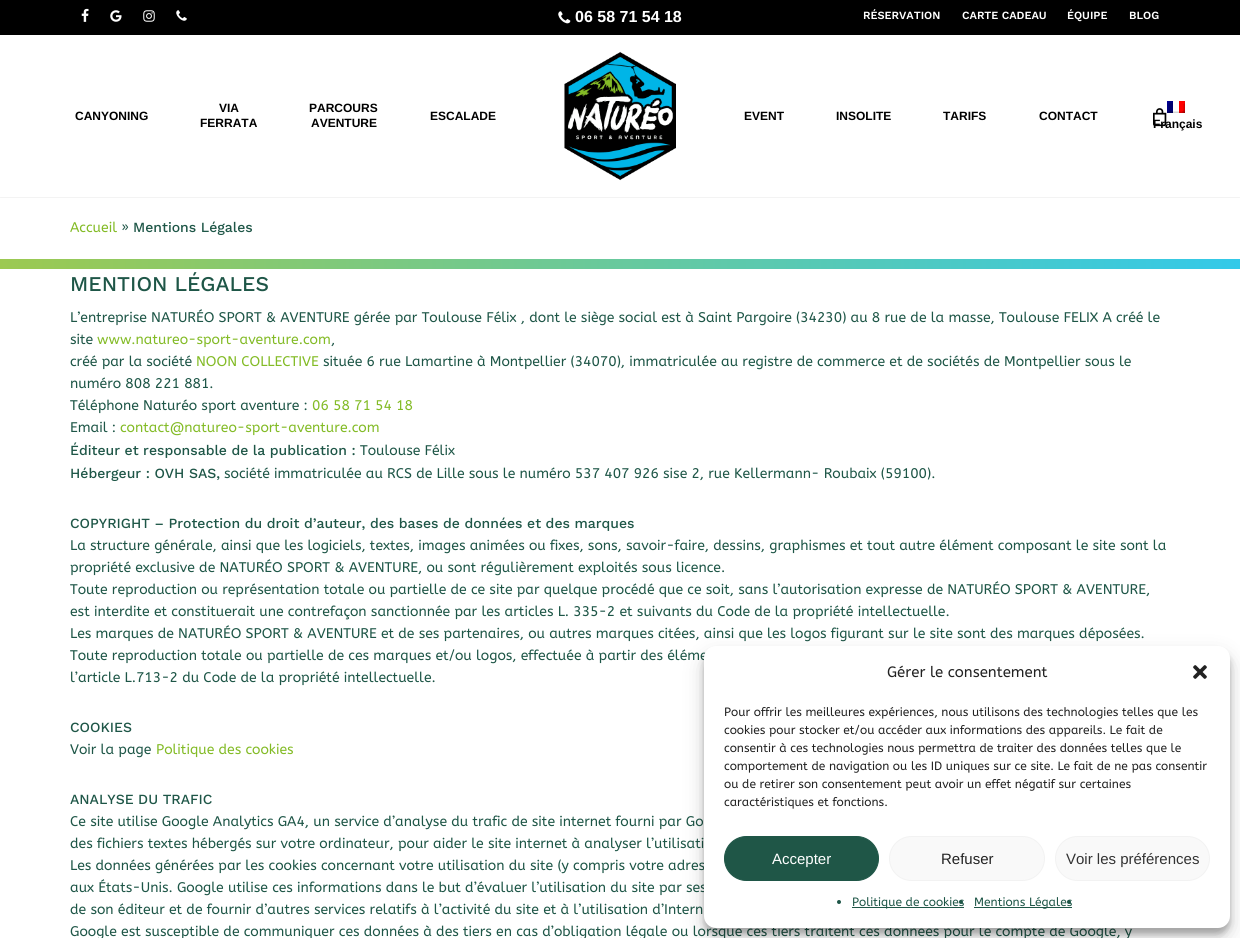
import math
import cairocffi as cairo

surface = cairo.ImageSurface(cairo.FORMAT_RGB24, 1240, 938)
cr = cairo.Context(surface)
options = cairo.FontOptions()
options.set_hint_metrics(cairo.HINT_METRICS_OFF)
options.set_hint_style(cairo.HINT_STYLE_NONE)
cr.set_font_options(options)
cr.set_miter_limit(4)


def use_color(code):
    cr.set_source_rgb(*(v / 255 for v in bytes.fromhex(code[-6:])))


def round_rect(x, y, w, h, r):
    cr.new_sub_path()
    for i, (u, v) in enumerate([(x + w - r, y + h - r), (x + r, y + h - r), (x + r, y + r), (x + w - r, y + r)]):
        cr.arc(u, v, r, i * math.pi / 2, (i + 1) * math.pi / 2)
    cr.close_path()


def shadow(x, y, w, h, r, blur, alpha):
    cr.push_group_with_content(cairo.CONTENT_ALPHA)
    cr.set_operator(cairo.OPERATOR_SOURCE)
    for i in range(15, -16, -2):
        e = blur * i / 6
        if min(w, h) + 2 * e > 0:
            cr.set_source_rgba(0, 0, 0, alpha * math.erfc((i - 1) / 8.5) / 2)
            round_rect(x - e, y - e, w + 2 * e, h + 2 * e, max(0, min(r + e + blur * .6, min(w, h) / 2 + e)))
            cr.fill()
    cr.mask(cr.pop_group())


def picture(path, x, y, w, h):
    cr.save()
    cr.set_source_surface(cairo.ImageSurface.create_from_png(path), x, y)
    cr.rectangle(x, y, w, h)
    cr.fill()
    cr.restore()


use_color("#ffffff")
cr.paint()
cr.save()
cr.rectangle(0, 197, 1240, 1)
cr.clip()
use_color("#000000")
shadow(0, 0, 1240, 197, 0, 1, 0.14)
cr.restore()
use_color("#000000")
cr.rectangle(0, 0, 1240, 35)
cr.fill()
picture("img1.png", 81, 8, 8, 14)
picture("img2.png", 110, 10, 12, 12)
picture("img3.png", 143, 10, 12, 12)
picture("img4.png", 176, 10, 11, 11)
picture("img5.png", 558, 11, 13, 13)
cr.select_font_face("Liberation Sans", cairo.FONT_SLANT_NORMAL, cairo.FONT_WEIGHT_BOLD)
cr.set_font_size(16)
use_color("#ffffff")
cr.move_to(575, 22)
cr.show_text("06 58 71 54 18")
cr.select_font_face("Work Sans SemiBold")
cr.set_font_size(11)
cr.move_to(863, 19)
cr.show_text("RÉSERVATION")
cr.move_to(962, 19)
cr.show_text("CARTE CADEAU")
cr.move_to(1067, 19)
cr.show_text("ÉQUIPE")
cr.move_to(1129, 19)
cr.show_text("BLOG")
picture("img6.png", 564, 51, 112, 130)
cr.select_font_face("Liberation Sans", cairo.FONT_SLANT_NORMAL, cairo.FONT_WEIGHT_BOLD)
cr.set_font_size(12)
use_color("#000000")
cr.move_to(75, 120)
cr.show_text("CANYONING")
cr.move_to(219, 112)
cr.show_text("VIA")
cr.move_to(200, 127)
cr.show_text("FERRATA")
cr.move_to(309, 112)
cr.show_text("PARCOURS")
cr.move_to(311, 127)
cr.show_text("AVENTURE")
cr.move_to(430, 120)
cr.show_text("ESCALADE")
cr.move_to(744, 120)
cr.show_text("EVENT")
cr.move_to(836, 120)
cr.show_text("INSOLITE")
cr.move_to(943, 120)
cr.show_text("TARIFS")
cr.move_to(1039, 120)
cr.show_text("CONTACT")
picture("img7.png", 1167, 101, 18, 12)
cr.move_to(1153, 128)
cr.show_text("Français")
picture("img8.png", 1153, 108, 14, 19)
cr.select_font_face("ABeeZee")
cr.set_font_size(14)
use_color("#83bb26")
cr.move_to(70, 232)
cr.show_text("Accueil")
use_color("#1e5647")
cr.move_to(121, 232)
cr.show_text("»")
cr.select_font_face("Work Sans Medium")
cr.move_to(133, 232)
cr.show_text("Mentions Légales")
gradient = cairo.LinearGradient(0, 264, 1240, 264)
gradient.add_color_stop_rgba(0, 0.612, 0.788, 0.318, 1)
gradient.add_color_stop_rgba(1, 0.2, 0.788, 0.914, 1)
cr.set_source(gradient)
cr.rectangle(0, 259, 1240, 10)
cr.fill()
cr.set_font_size(21)
use_color("#1e5647")
cr.move_to(70, 291)
cr.show_text("MENTION LÉGALES")
cr.select_font_face("ABeeZee")
cr.set_font_size(14)
cr.move_to(70, 322)
cr.show_text("L’entreprise NATURÉO SPORT & AVENTURE gérée par Toulouse Félix , dont le siège social est à Saint Pargoire (34230) au 8 rue de la masse, Toulouse FELIX A créé le")
cr.move_to(70, 344)
cr.show_text("site")
use_color("#83bb26")
cr.move_to(97, 344)
cr.show_text("www.natureo-sport-aventure.com")
use_color("#1e5647")
cr.move_to(331, 344)
cr.show_text(",")
cr.move_to(70, 366)
cr.show_text("créé par la société")
use_color("#83bb26")
cr.move_to(196, 366)
cr.show_text("NOON COLLECTIVE")
use_color("#1e5647")
cr.move_to(323, 366)
cr.show_text("située 6 rue Lamartine à Montpellier (34070), immatriculée au registre de commerce et de sociétés de Montpellier sous le")
cr.move_to(70, 388)
cr.show_text("numéro 808 221 881.")
cr.move_to(70, 410)
cr.show_text("Téléphone Naturéo sport aventure :")
use_color("#83bb26")
cr.move_to(312, 410)
cr.show_text("06 58 71 54 18")
use_color("#1e5647")
cr.move_to(70, 432)
cr.show_text("Email :")
use_color("#83bb26")
cr.move_to(120, 432)
cr.show_text("contact@natureo-sport-aventure.com")
cr.select_font_face("Work Sans Medium")
use_color("#1e5647")
cr.move_to(70, 455)
cr.show_text("Éditeur et responsable de la publication :")
cr.select_font_face("ABeeZee")
cr.move_to(360, 455)
cr.show_text("Toulouse Félix")
cr.select_font_face("Work Sans Medium")
cr.move_to(70, 478)
cr.show_text("Hébergeur : OVH SAS,")
cr.select_font_face("ABeeZee")
cr.move_to(224, 478)
cr.show_text("société immatriculée au RCS de Lille sous le numéro 537 407 926 sise 2, rue Kellermann- Roubaix (59100).")
cr.select_font_face("Work Sans Medium")
cr.move_to(70, 528)
cr.show_text("COPYRIGHT – Protection du droit d’auteur, des bases de données et des marques")
cr.select_font_face("ABeeZee")
cr.move_to(70, 550)
cr.show_text("La structure générale, ainsi que les logiciels, textes, images animées ou fixes, sons, savoir-faire, dessins, graphismes et tout autre élément composant le site sont la")
cr.move_to(70, 572)
cr.show_text("propriété exclusive de NATURÉO SPORT & AVENTURE, ou sont régulièrement exploités sous licence.")
cr.move_to(70, 594)
cr.show_text("Toute reproduction ou représentation totale ou partielle de ce site par quelque procédé que ce soit, sans l’autorisation expresse de NATURÉO SPORT & AVENTURE,")
cr.move_to(70, 616)
cr.show_text("est interdite et constituerait une contrefaçon sanctionnée par les articles L. 335-2 et suivants du Code de la propriété intellectuelle.")
cr.move_to(70, 638)
cr.show_text("Les marques de NATURÉO SPORT & AVENTURE et de ses partenaires, ou autres marques citées, ainsi que les logos figurant sur le site sont des marques déposées.")
cr.move_to(70, 660)
cr.show_text("Toute reproduction totale ou partielle de ces marques et/ou logos, effectuée à partir des éléme")
cr.move_to(70, 682)
cr.show_text("l’article L.713-2 du Code de la propriété intellectuelle.")
cr.select_font_face("Work Sans Medium")
cr.move_to(70, 732)
cr.show_text("COOKIES")
cr.select_font_face("ABeeZee")
cr.move_to(70, 754)
cr.show_text("Voir la page")
use_color("#83bb26")
cr.move_to(156, 754)
cr.show_text("Politique des cookies")
cr.select_font_face("Work Sans Medium")
use_color("#1e5647")
cr.move_to(70, 804)
cr.show_text("ANALYSE DU TRAFIC")
cr.select_font_face("ABeeZee")
cr.move_to(70, 826)
cr.show_text("Ce site utilise Google Analytics GA4, un service d’analyse du trafic de site internet fourni par Go")
cr.move_to(70, 848)
cr.show_text("des fichiers textes hébergés sur votre ordinateur, pour aider le site internet à analyser l’utilisati")
cr.move_to(70, 870)
cr.show_text("Les données générées par les cookies concernant votre utilisation du site (y compris votre adres")
cr.move_to(70, 892)
cr.show_text("aux États-Unis. Google utilise ces informations dans le but d’évaluer l’utilisation du site par ses")
cr.move_to(70, 914)
cr.show_text("de son éditeur et de fournir d’autres services relatifs à l’activité du site et à l’utilisation d’Intern")
cr.move_to(70, 936)
cr.show_text("Google est susceptible de communiquer ces données à des tiers en cas d’obligation légale ou lorsque ces tiers traitent ces données pour le compte de Google, y")
use_color("#000000")
shadow(704, 652, 526, 282, 12, 3, 0.23)
shadow(704, 656, 526, 282, 12, 10, 0.19)
use_color("#ffffff")
round_rect(704, 646, 526, 282, 12)
cr.fill()
cr.set_font_size(15)
use_color("#222222")
cr.move_to(887, 677)
cr.show_text("Gérer le consentement")
picture("img9.png", 1193, 665, 14, 14)
cr.set_font_size(12)
cr.move_to(724, 716)
cr.show_text("Pour offrir les meilleures expériences, nous utilisons des technologies telles que les")
cr.move_to(724, 734)
cr.show_text("cookies pour stocker et/ou accéder aux informations des appareils. Le fait de")
cr.move_to(724, 752)
cr.show_text("consentir à ces technologies nous permettra de traiter des données telles que le")
cr.move_to(724, 770)
cr.show_text("comportement de navigation ou les ID uniques sur ce site. Le fait de ne pas consentir")
cr.move_to(724, 788)
cr.show_text("ou de retirer son consentement peut avoir un effet négatif sur certaines")
cr.move_to(724, 806)
cr.show_text("caractéristiques et fonctions.")
use_color("#1f5647")
round_rect(724.5, 836.5, 154, 44, 22)
cr.fill_preserve()
cr.set_line_width(1)
cr.stroke()
cr.select_font_face("Liberation Sans")
cr.set_font_size(15)
use_color("#ffffff")
cr.move_to(772, 864)
cr.show_text("Accepter")
use_color("#f9f9f9")
round_rect(889.5, 836.5, 155, 44, 22)
cr.fill_preserve()
use_color("#f2f2f2")
cr.stroke()
use_color("#222222")
cr.move_to(941, 864)
cr.show_text("Refuser")
use_color("#f9f9f9")
round_rect(1055.5, 836.5, 154, 44, 22)
cr.fill_preserve()
use_color("#f2f2f2")
cr.stroke()
use_color("#333333")
cr.move_to(1066, 864)
cr.show_text("Voir les préférences")
use_color("#1e5647")
cr.new_path()
cr.arc(839, 902, 2, 0, 2 * math.pi)
cr.fill()
use_color("#1f5647")
cr.rectangle(852, 907, 112, 1)
cr.fill()
cr.select_font_face("ABeeZee")
cr.set_font_size(12)
use_color("#1e5647")
cr.move_to(852, 906)
cr.show_text("Politique de cookies")
cr.new_path()
cr.arc(961, 902, 2, 0, 2 * math.pi)
cr.fill()
use_color("#1f5647")
cr.rectangle(974, 907, 98, 1)
cr.fill()
use_color("#1e5647")
cr.move_to(974, 906)
cr.show_text("Mentions Légales")
cr.new_path()
cr.arc(1069, 902, 2, 0, 2 * math.pi)
cr.fill()
surface.write_to_png("result.png")
